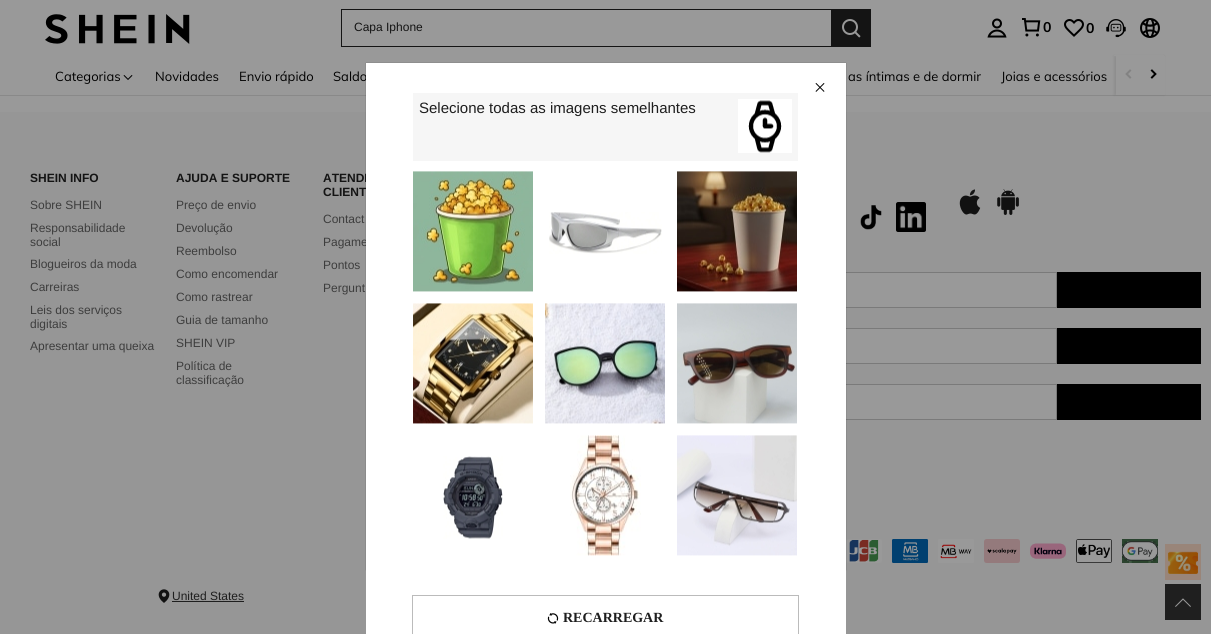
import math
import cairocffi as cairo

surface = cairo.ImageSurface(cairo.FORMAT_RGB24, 1211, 634)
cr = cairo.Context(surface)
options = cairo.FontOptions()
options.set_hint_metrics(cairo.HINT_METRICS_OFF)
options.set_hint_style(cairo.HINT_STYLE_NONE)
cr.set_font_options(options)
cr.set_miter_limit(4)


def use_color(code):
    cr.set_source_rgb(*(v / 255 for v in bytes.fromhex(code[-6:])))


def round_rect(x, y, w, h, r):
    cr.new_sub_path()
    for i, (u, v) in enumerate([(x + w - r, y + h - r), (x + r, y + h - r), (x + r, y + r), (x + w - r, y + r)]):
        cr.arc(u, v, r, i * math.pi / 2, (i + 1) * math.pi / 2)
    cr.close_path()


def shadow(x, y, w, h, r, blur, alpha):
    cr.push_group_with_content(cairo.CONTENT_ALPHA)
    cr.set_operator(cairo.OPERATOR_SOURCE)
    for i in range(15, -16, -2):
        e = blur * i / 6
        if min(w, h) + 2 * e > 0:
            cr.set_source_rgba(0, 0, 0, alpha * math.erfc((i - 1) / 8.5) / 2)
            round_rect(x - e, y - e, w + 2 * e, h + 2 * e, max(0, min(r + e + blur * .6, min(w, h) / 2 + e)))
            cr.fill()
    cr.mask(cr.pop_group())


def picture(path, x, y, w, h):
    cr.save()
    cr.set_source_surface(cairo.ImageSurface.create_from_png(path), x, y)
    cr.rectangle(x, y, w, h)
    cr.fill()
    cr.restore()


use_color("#999999")
cr.paint()
use_color("#898989")
cr.rectangle(0, 95, 1211, 1)
cr.fill()
use_color("#000000")
shadow(1114, 56, 50, 39, 0, 1.5, 0.08)
use_color("#999999")
cr.rectangle(1114, 55, 50, 1)
cr.fill()
picture("img1.png", 45, 14, 145, 30)
use_color("#141414")
cr.rectangle(341, 9, 490, 1)
cr.fill()
cr.rectangle(341, 46, 490, 1)
cr.fill()
cr.rectangle(341, 9, 1, 38)
cr.fill()
cr.select_font_face("Liberation Sans")
cr.set_font_size(12)
cr.move_to(354, 31)
cr.show_text("Capa Iphone")
cr.rectangle(831, 9, 40, 38)
cr.fill()
picture("img2.png", 842, 19, 19, 19)
picture("img3.png", 987, 18, 20, 20)
picture("img4.png", 1022, 18, 19, 19)
cr.select_font_face("Muli", cairo.FONT_SLANT_NORMAL, cairo.FONT_WEIGHT_BOLD)
cr.set_font_size(14)
use_color("#000000")
cr.move_to(1043, 32)
cr.show_text("0")
picture("img5.png", 1064, 19, 20, 18)
cr.move_to(1086, 33)
cr.show_text("0")
picture("img6.png", 1106, 19, 20, 19)
picture("img7.png", 1140, 18, 20, 20)
cr.select_font_face("Muli")
cr.set_font_size(13)
cr.move_to(55, 81)
cr.show_text("Categorias")
picture("img8.png", 123, 75, 10, 5)
cr.move_to(155, 81)
cr.show_text("Novidades")
cr.move_to(239, 81)
cr.show_text("Envio rápido")
cr.move_to(333, 81)
cr.show_text("Saldo")
cr.move_to(848, 81)
cr.show_text("as íntimas e de dormir")
cr.move_to(1001, 81)
cr.show_text("Joias e acessórios")
use_color("#999999")
cr.rectangle(1116, 56, 49, 39)
cr.fill()
picture("img9.png", 1125, 69, 7, 10)
picture("img10.png", 1150, 69, 7, 10)
use_color("#969696")
cr.rectangle(0, 112, 1211, 522)
cr.fill()
cr.select_font_face("Liberation Sans", cairo.FONT_SLANT_NORMAL, cairo.FONT_WEIGHT_BOLD)
cr.set_font_size(12)
use_color("#141414")
cr.move_to(30, 182)
cr.show_text("SHEIN INFO")
cr.select_font_face("Liberation Sans")
use_color("#3d3d3d")
cr.move_to(30, 209)
cr.show_text("Sobre SHEIN")
cr.move_to(30, 232)
cr.show_text("Responsabilidade")
cr.move_to(30, 246)
cr.show_text("social")
cr.move_to(30, 268)
cr.show_text("Blogueiros da moda")
cr.move_to(30, 291)
cr.show_text("Carreiras")
cr.move_to(30, 314)
cr.show_text("Leis dos serviços")
cr.move_to(30, 328)
cr.show_text("digitais")
cr.move_to(30, 350)
cr.show_text("Apresentar uma queixa")
cr.select_font_face("Liberation Sans", cairo.FONT_SLANT_NORMAL, cairo.FONT_WEIGHT_BOLD)
use_color("#141414")
cr.move_to(176, 182)
cr.show_text("AJUDA E SUPORTE")
cr.select_font_face("Liberation Sans")
use_color("#3d3d3d")
cr.move_to(176, 209)
cr.show_text("Preço de envio")
cr.move_to(176, 232)
cr.show_text("Devolução")
cr.move_to(176, 255)
cr.show_text("Reembolso")
cr.move_to(176, 278)
cr.show_text("Como encomendar")
cr.move_to(176, 301)
cr.show_text("Como rastrear")
cr.move_to(176, 324)
cr.show_text("Guia de tamanho")
cr.move_to(176, 347)
cr.show_text("SHEIN VIP")
cr.move_to(176, 370)
cr.show_text("Política de")
cr.move_to(176, 384)
cr.show_text("classificação")
cr.select_font_face("Liberation Sans", cairo.FONT_SLANT_NORMAL, cairo.FONT_WEIGHT_BOLD)
use_color("#141414")
cr.move_to(323, 182)
cr.show_text("ATENDI")
cr.move_to(323, 196)
cr.show_text("CLIENT")
cr.select_font_face("Liberation Sans")
use_color("#3d3d3d")
cr.move_to(323, 223)
cr.show_text("Contact")
cr.move_to(323, 246)
cr.show_text("Pagame")
cr.move_to(323, 269)
cr.show_text("Pontos")
cr.move_to(323, 292)
cr.show_text("Pergunt")
picture("img11.png", 860, 205, 22, 25)
picture("img12.png", 896, 202, 30, 30)
picture("img13.png", 959, 189, 22, 26)
picture("img14.png", 997, 189, 22, 26)
use_color("#999999")
cr.rectangle(846, 273, 210, 34)
cr.fill()
cr.rectangle(616.5, 272.5, 440, 35)
use_color("#7a7a7a")
cr.set_line_width(1)
cr.stroke()
use_color("#000000")
cr.rectangle(1057, 272, 144, 36)
cr.fill()
use_color("#999999")
cr.rectangle(846, 329, 210, 34)
cr.fill()
cr.rectangle(696.5, 328.5, 360, 35)
use_color("#7a7a7a")
cr.stroke()
use_color("#000000")
cr.rectangle(1057, 328, 144, 36)
cr.fill()
use_color("#999999")
cr.rectangle(846, 385, 210, 34)
cr.fill()
cr.rectangle(696.5, 384.5, 360, 35)
use_color("#7a7a7a")
cr.stroke()
use_color("#000000")
cr.rectangle(1057, 384, 144, 36)
cr.fill()
picture("img15.png", 846, 539, 36, 24)
picture("img16.png", 892, 539, 36, 24)
picture("img17.png", 938, 539, 36, 24)
picture("img18.png", 984, 539, 36, 24)
picture("img19.png", 1030, 543, 36, 16)
picture("img20.png", 1076, 539, 36, 24)
picture("img21.png", 1122, 539, 36, 24)
picture("img22.png", 158, 589, 12, 14)
use_color("#1e1e1e")
cr.move_to(172, 600)
cr.show_text("United States")
cr.rectangle(172, 601, 72, 1)
cr.fill()
use_color("#998579")
cr.rectangle(1165, 544, 36, 36)
cr.fill()
picture("img23.png", 1168, 551, 30, 23)
use_color("#1f1f1f")
cr.rectangle(1165, 584, 36, 36)
cr.fill()
picture("img24.png", 1175, 598, 16, 9)
use_color("#000000")
shadow(366, 63, 480, 507, 0, 0.5, 0.3)
use_color("#ffffff")
cr.rectangle(366, 63, 480, 571)
cr.fill()
picture("img25.png", 815, 83, 10, 9)
use_color("#f6f6f6")
cr.rectangle(413, 93, 385, 68)
cr.fill()
cr.set_font_size(15)
use_color("#1e1e1e")
cr.move_to(419, 113)
cr.show_text("Selecione todas as imagens semelhantes")
use_color("#ffffff")
cr.rectangle(738, 99, 54, 54)
cr.fill()
picture("img26.png", 748, 100, 34, 53)
picture("img27.png", 413, 171, 120, 121)
picture("img28.png", 549, 212, 113, 42)
picture("img29.png", 677, 171, 120, 121)
picture("img30.png", 413, 303, 120, 121)
picture("img31.png", 545, 303, 120, 121)
picture("img32.png", 677, 303, 120, 121)
picture("img33.png", 443, 456, 60, 83)
picture("img34.png", 570, 435, 71, 121)
picture("img35.png", 677, 435, 120, 121)
cr.rectangle(412.5, 595.5, 386, 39)
use_color("#bbbbbb")
cr.stroke()
picture("img36.png", 547, 613, 12, 11)
cr.select_font_face("Liberation Serif", cairo.FONT_SLANT_NORMAL, cairo.FONT_WEIGHT_BOLD)
cr.set_font_size(14)
use_color("#1e1e1e")
cr.move_to(563, 622)
cr.show_text("RECARREGAR")
surface.write_to_png("result.png")
